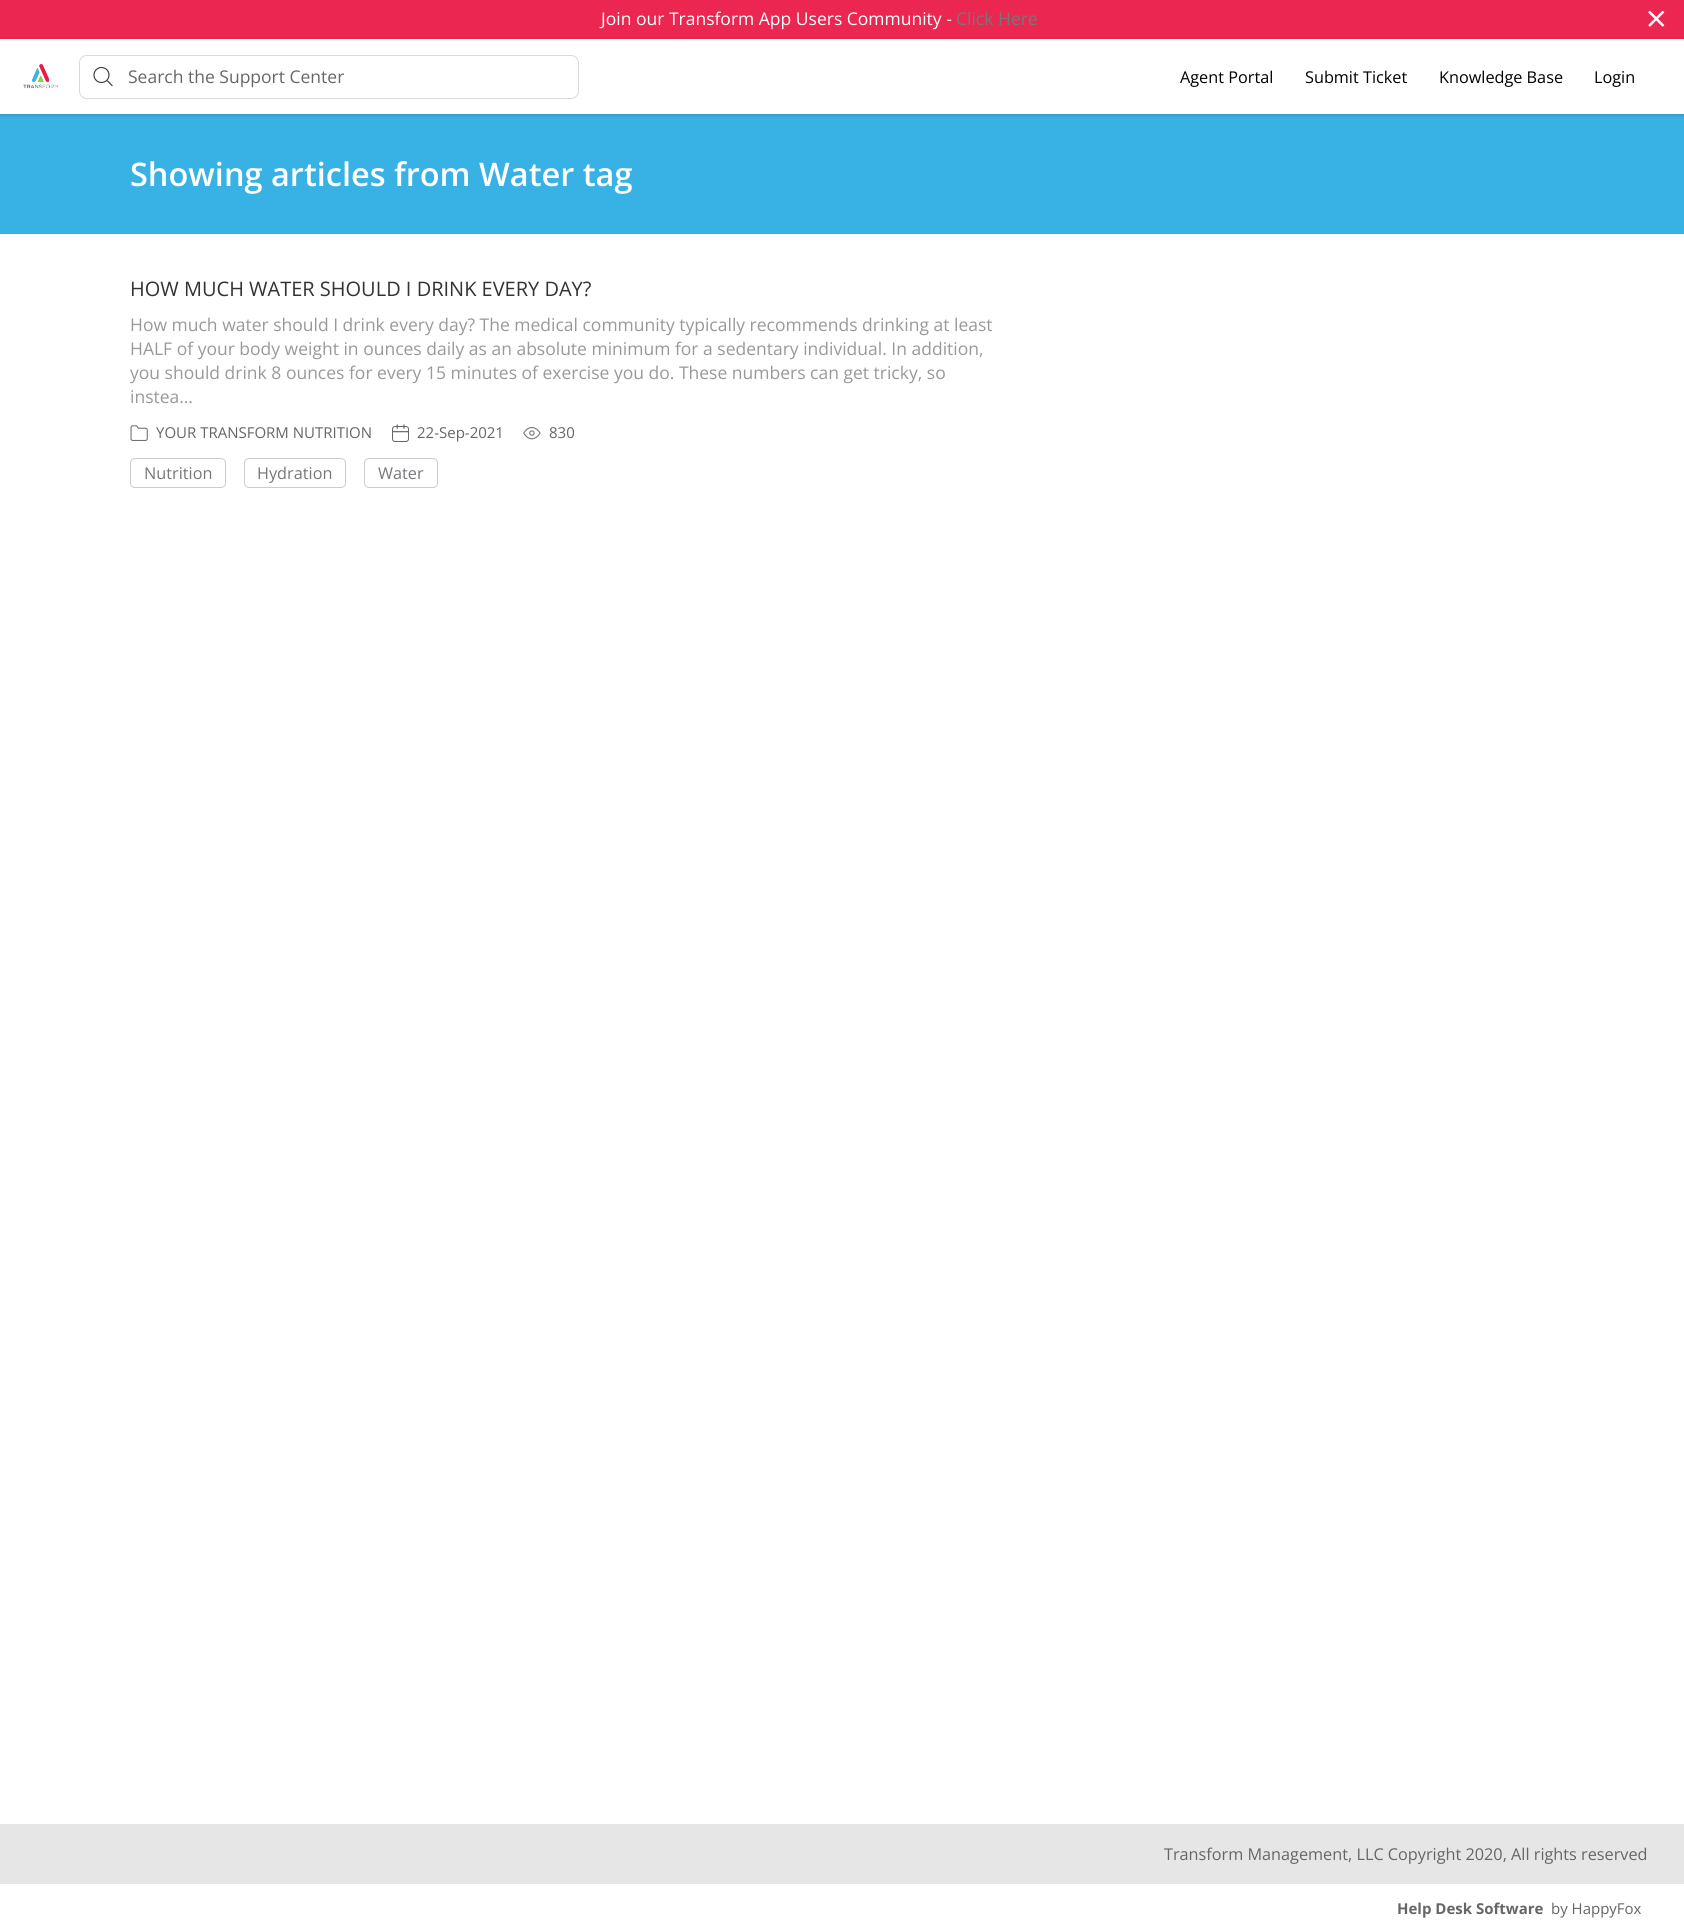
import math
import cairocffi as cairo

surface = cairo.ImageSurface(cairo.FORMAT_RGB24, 1684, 1932)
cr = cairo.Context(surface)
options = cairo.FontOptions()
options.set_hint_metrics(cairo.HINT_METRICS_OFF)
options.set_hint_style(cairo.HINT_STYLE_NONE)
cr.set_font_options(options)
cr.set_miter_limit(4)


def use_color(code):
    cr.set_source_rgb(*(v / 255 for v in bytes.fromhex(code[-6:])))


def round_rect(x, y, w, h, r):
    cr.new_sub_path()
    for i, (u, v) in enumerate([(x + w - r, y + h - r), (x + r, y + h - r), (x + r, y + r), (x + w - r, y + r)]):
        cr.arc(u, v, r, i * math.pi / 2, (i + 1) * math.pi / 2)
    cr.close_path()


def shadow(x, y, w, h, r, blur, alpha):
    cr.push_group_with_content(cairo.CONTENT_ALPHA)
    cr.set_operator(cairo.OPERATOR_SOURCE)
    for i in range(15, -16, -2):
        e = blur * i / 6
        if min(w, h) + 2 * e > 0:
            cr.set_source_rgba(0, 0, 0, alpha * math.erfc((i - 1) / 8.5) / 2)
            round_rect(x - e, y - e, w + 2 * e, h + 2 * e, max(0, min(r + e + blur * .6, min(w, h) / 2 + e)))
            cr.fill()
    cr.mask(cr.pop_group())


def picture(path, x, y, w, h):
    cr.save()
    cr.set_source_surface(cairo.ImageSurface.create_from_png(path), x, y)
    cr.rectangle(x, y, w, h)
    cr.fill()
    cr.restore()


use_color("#ffffff")
cr.paint()
use_color("#ea2651")
cr.rectangle(0, 0, 1684, 39)
cr.fill()
cr.select_font_face("Open Sans")
cr.set_font_size(17.5)
use_color("#ffffff")
cr.move_to(601, 25)
cr.show_text("Join our Transform App Users Community -")
use_color("#76777a")
cr.move_to(956, 25)
cr.show_text("Click Here")
cr.new_path()
cr.move_to(1663.5, 11.5)
cr.line_to(1649, 26)
cr.move_to(1663.5, 26)
cr.line_to(1649, 11.5)
use_color("#ffffff")
cr.set_line_width(2.5)
cr.stroke()
use_color("#38b1e4")
cr.rectangle(0, 114, 1684, 120)
cr.fill()
use_color("#000000")
shadow(0, 40, 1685, 75, 0, 2, 0.2)
use_color("#ffffff")
cr.rectangle(0, 39, 1684, 75)
cr.fill()
picture("img1.png", 23, 64, 36, 25)
cr.arc(101.5, 75, 7.5, 0, 2 * math.pi)
use_color("#424242")
cr.set_line_width(1.2)
cr.stroke()
cr.new_path()
cr.move_to(107.5, 81)
cr.line_to(112, 85.5)
cr.set_line_cap(cairo.LINE_CAP_SQUARE)
cr.stroke()
round_rect(79.5, 55.5, 499, 43, 7.5)
use_color("#d9d9d9")
cr.set_line_width(1)
cr.set_line_cap(cairo.LINE_CAP_BUTT)
cr.stroke()
use_color("#666666")
cr.move_to(128, 83)
cr.show_text("Search the Support Center")
cr.set_font_size(16.25)
use_color("#000000")
cr.move_to(1180, 83)
cr.show_text("Agent Portal")
cr.move_to(1305, 83)
cr.show_text("Submit Ticket")
cr.move_to(1439, 83)
cr.show_text("Knowledge Base")
cr.move_to(1594, 83)
cr.show_text("Login")
cr.select_font_face("Open Sans SemiBold")
cr.set_font_size(32.5)
use_color("#ffffff")
cr.move_to(130, 186)
cr.show_text("Showing articles from Water tag")
cr.select_font_face("Open Sans")
cr.set_font_size(20)
use_color("#333333")
cr.move_to(130, 296)
cr.show_text("HOW MUCH WATER SHOULD I DRINK EVERY DAY?")
cr.set_font_size(17.5)
use_color("#999999")
cr.move_to(130, 331)
cr.show_text("How much water should I drink every day? The medical community typically recommends drinking at least")
cr.move_to(130, 355)
cr.show_text("HALF of your body weight in ounces daily as an absolute minimum for a sedentary individual. In addition,")
cr.move_to(130, 379)
cr.show_text("you should drink 8 ounces for every 15 minutes of exercise you do. These numbers can get tricky, so")
cr.move_to(130, 403)
cr.show_text("instea…")
picture("img2.png", 130, 425, 18, 16)
cr.set_font_size(15)
use_color("#666666")
cr.move_to(156, 438)
cr.show_text("YOUR TRANSFORM NUTRITION")
picture("img3.png", 392, 424, 17, 18)
cr.move_to(417, 438)
cr.show_text("22-Sep-2021")
picture("img4.png", 523, 426, 18, 14)
cr.move_to(549, 438)
cr.show_text("830")
round_rect(130.5, 458.5, 95, 29, 4.5)
use_color("#cccccc")
cr.stroke()
cr.set_font_size(16.25)
use_color("#76777a")
cr.move_to(144, 479)
cr.show_text("Nutrition")
round_rect(244.5, 458.5, 101, 29, 4.5)
use_color("#cccccc")
cr.stroke()
use_color("#76777a")
cr.move_to(257, 479)
cr.show_text("Hydration")
round_rect(364.5, 458.5, 73, 29, 4.5)
use_color("#cccccc")
cr.stroke()
use_color("#76777a")
cr.move_to(378, 479)
cr.show_text("Water")
use_color("#e6e6e6")
cr.rectangle(0, 1824, 1684, 60)
cr.fill()
use_color("#666666")
cr.move_to(1164, 1860)
cr.show_text("Transform Management, LLC Copyright 2020, All rights reserved")
cr.select_font_face("Open Sans", cairo.FONT_SLANT_NORMAL, cairo.FONT_WEIGHT_BOLD)
cr.set_font_size(15)
cr.move_to(1397, 1914)
cr.show_text("Help Desk Software")
cr.select_font_face("Open Sans")
cr.move_to(1551, 1914)
cr.show_text("by HappyFox")
surface.write_to_png("result.png")
